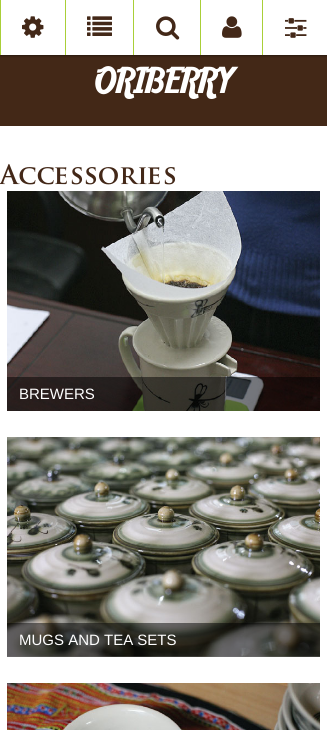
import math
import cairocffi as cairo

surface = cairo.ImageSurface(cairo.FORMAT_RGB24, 327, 730)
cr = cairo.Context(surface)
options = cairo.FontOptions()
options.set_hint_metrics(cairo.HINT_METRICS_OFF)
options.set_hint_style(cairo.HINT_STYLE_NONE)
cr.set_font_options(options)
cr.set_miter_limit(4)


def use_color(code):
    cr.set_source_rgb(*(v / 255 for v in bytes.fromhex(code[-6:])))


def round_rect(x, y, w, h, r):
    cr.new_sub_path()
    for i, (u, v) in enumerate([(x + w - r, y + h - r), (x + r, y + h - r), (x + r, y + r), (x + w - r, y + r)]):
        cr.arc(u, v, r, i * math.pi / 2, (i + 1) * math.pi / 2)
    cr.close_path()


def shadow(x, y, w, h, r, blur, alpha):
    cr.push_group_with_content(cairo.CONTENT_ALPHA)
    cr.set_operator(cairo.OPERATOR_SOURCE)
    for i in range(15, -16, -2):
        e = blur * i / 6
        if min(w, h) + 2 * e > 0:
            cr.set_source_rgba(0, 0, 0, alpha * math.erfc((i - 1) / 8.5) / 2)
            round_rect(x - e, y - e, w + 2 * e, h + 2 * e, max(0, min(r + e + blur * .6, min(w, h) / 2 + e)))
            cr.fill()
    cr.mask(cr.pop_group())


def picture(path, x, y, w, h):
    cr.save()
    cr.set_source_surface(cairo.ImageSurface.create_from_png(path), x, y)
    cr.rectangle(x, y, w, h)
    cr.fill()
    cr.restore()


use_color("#ffffff")
cr.paint()
use_color("#432817")
cr.rectangle(0, 55, 327, 71)
cr.fill()
use_color("#000000")
shadow(0, 0, 327, 55, 0, 1.5, 0.75)
use_color("#ffffff")
cr.rectangle(1, 0, 326, 55)
cr.fill()
use_color("#a9cf38")
cr.rectangle(0, 0, 1, 55)
cr.fill()
picture("img1.png", 22, 16, 22, 22)
cr.rectangle(65, 0, 1, 55)
cr.fill()
picture("img2.png", 87, 16, 25, 20)
cr.rectangle(133, 0, 1, 55)
cr.fill()
picture("img3.png", 156, 16, 24, 24)
cr.rectangle(200, 0, 1, 55)
cr.fill()
picture("img4.png", 222, 16, 20, 22)
cr.rectangle(262, 0, 1, 55)
cr.fill()
picture("img5.png", 285, 18, 22, 20)
cr.select_font_face("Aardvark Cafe")
cr.set_font_size(35)
use_color("#ffffff")
cr.move_to(96, 93)
cr.show_text("ORIBERRY")
cr.select_font_face("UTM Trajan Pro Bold", cairo.FONT_SLANT_NORMAL, cairo.FONT_WEIGHT_BOLD)
cr.set_font_size(26)
use_color("#432818")
cr.move_to(0, 184)
cr.show_text("Accessories")
picture("img6.png", 7, 191, 313, 220)
cr.set_source_rgba(0, 0, 0, 0.5)
cr.rectangle(7, 377, 313, 34)
cr.fill()
cr.select_font_face("Liberation Sans")
cr.set_font_size(15)
use_color("#ffffff")
cr.move_to(19, 399)
cr.show_text("BREWERS")
picture("img7.png", 7, 437, 313, 220)
cr.set_source_rgba(0, 0, 0, 0.5)
cr.rectangle(7, 623, 313, 34)
cr.fill()
use_color("#ffffff")
cr.move_to(19, 645)
cr.show_text("MUGS AND TEA SETS")
picture("img8.png", 7, 683, 313, 47)
surface.write_to_png("result.png")
